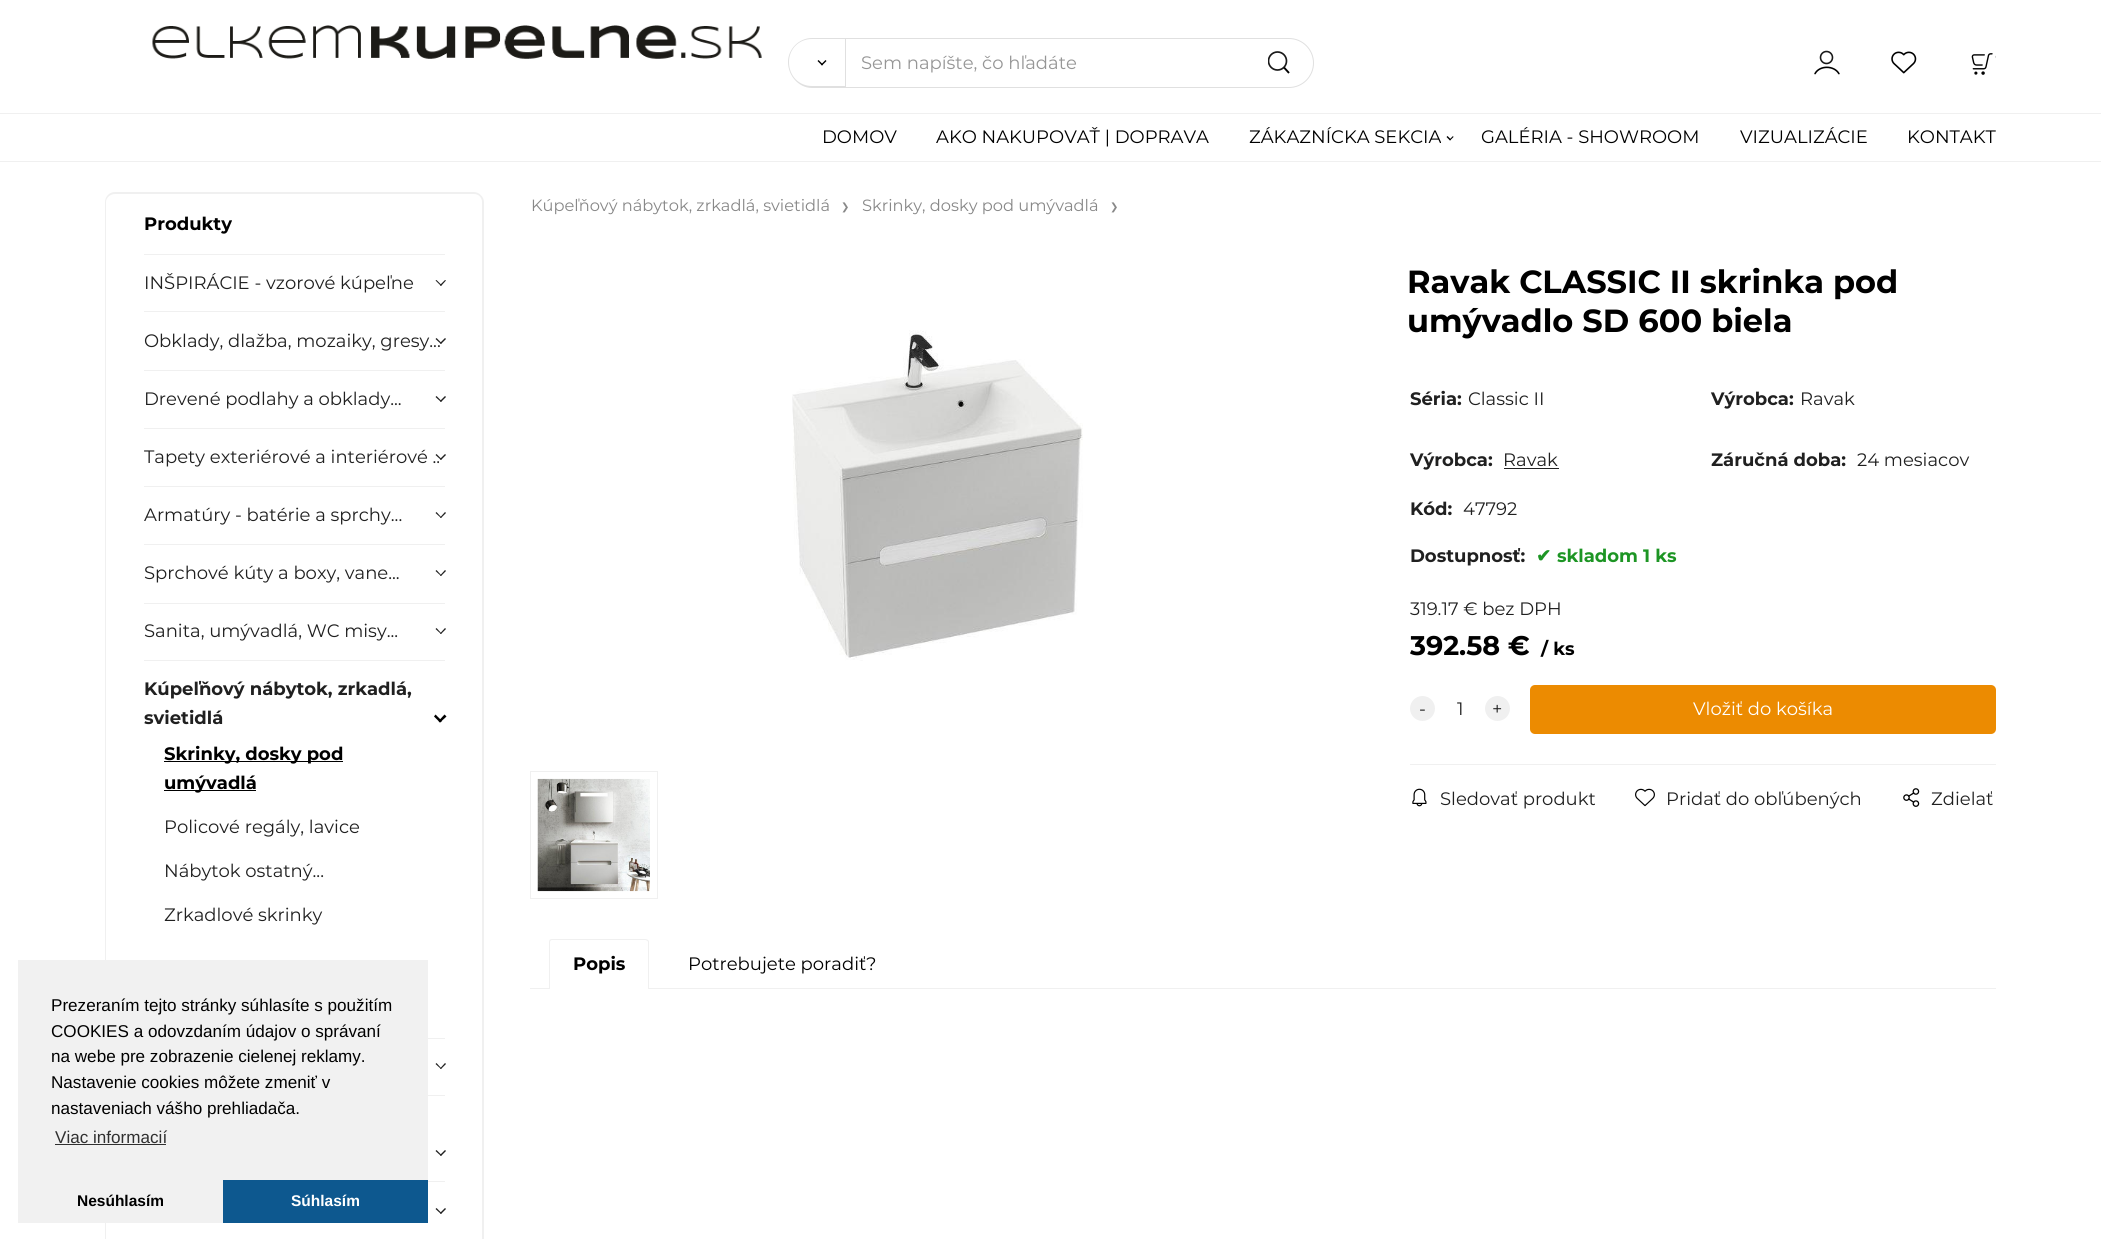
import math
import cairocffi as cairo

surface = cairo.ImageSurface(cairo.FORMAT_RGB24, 2101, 1239)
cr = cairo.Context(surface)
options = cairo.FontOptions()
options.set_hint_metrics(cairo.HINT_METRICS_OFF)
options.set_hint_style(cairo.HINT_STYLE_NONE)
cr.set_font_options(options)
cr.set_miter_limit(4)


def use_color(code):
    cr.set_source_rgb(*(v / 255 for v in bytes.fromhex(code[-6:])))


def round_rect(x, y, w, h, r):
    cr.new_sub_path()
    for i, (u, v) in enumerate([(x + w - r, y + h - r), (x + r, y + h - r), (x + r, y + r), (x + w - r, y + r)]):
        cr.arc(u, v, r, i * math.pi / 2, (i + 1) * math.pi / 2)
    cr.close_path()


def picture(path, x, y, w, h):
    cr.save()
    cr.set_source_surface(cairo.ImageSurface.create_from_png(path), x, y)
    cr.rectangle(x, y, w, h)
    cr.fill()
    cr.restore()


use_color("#ffffff")
cr.paint()
picture("img1.png", 152, 25, 610, 34)
use_color("#e0e0e0")
cr.set_fill_rule(cairo.FILL_RULE_EVEN_ODD)
cr.new_path()
cr.move_to(812, 38)
cr.line_to(845, 38)
cr.line_to(845, 88)
cr.line_to(812, 88)
cr.curve_to(799, 88, 788, 76, 788, 62)
cr.curve_to(788, 49, 799, 38, 812, 38)
cr.close_path()
cr.move_to(812, 39)
cr.line_to(845, 39)
cr.line_to(845, 86)
cr.line_to(812, 86)
cr.curve_to(799, 86, 789, 76, 789, 62)
cr.curve_to(789, 49, 799, 39, 812, 39)
cr.close_path()
cr.fill()
use_color("#000000")
cr.set_fill_rule(cairo.FILL_RULE_WINDING)
cr.new_path()
cr.move_to(821, 64.5)
cr.line_to(825.5, 60)
cr.line_to(826.5, 61)
cr.line_to(822, 65.5)
cr.close_path()
cr.fill()
cr.new_path()
cr.move_to(817.5, 61)
cr.line_to(818.5, 60)
cr.line_to(823, 64.5)
cr.line_to(822, 65.5)
cr.close_path()
cr.fill()
cr.new_path()
cr.move_to(845.5, 38.5)
cr.line_to(1289, 38.5)
cr.curve_to(1302.5, 38.5, 1313.5, 49.5, 1313.5, 63)
cr.curve_to(1313.5, 76.5, 1302.5, 87.5, 1289, 87.5)
cr.line_to(845.5, 87.5)
cr.close_path()
use_color("#e0e0e0")
cr.set_line_width(1)
cr.stroke()
cr.select_font_face("Montserrat")
cr.set_font_size(18)
use_color("#969696")
cr.move_to(861, 69)
cr.show_text("Sem napíšte, čo hľadáte")
cr.save()
cr.rectangle(1268, 51, 22, 23)
cr.clip()
cr.arc(1277.5, 61, 9, 0, 2 * math.pi)
use_color("#191919")
cr.set_line_width(1.7)
cr.stroke()
cr.restore()
cr.new_path()
cr.move_to(1284, 67.5)
cr.line_to(1289, 73)
use_color("#000000")
cr.set_line_width(1.9)
cr.stroke()
picture("img2.png", 1814, 50, 26, 25)
picture("img3.png", 1891, 51, 26, 23)
picture("img4.png", 1971, 53, 25, 22)
use_color("#f0f0f0")
cr.rectangle(0, 113, 2101, 1)
cr.fill()
cr.rectangle(0, 161, 2101, 1)
cr.fill()
use_color("#000000")
cr.move_to(822, 143)
cr.show_text("DOMOV")
cr.move_to(936, 143)
cr.show_text("AKO NAKUPOVAŤ | DOPRAVA")
cr.move_to(1249, 143)
cr.show_text("ZÁKAZNÍCKA SEKCIA")
cr.new_path()
cr.move_to(1449.5, 139.5)
cr.line_to(1453, 136)
cr.line_to(1453.5, 137)
cr.line_to(1450, 140.5)
cr.close_path()
cr.fill()
cr.new_path()
cr.move_to(1446.5, 137)
cr.line_to(1447.5, 136)
cr.line_to(1451, 139.5)
cr.line_to(1450, 140.5)
cr.close_path()
cr.fill()
cr.move_to(1481, 143)
cr.show_text("GALÉRIA - SHOWROOM")
cr.move_to(1740, 143)
cr.show_text("VIZUALIZÁCIE")
cr.move_to(1907, 143)
cr.show_text("KONTAKT")
use_color("#f0f0f0")
cr.set_fill_rule(cairo.FILL_RULE_EVEN_ODD)
cr.new_path()
cr.move_to(115, 192)
cr.line_to(474, 192)
cr.curve_to(479, 192, 484, 197, 484, 202)
cr.line_to(484, 254)
cr.line_to(105, 254)
cr.line_to(105, 202)
cr.curve_to(105, 197, 109, 192, 115, 192)
cr.close_path()
cr.move_to(115, 194)
cr.line_to(474, 194)
cr.curve_to(479, 194, 482, 198, 482, 202)
cr.line_to(482, 254)
cr.line_to(106, 254)
cr.line_to(106, 202)
cr.curve_to(106, 198, 110, 194, 115, 194)
cr.close_path()
cr.fill()
cr.select_font_face("Montserrat", cairo.FONT_SLANT_NORMAL, cairo.FONT_WEIGHT_BOLD)
use_color("#000000")
cr.move_to(144, 230)
cr.show_text("Produkty")
use_color("#f0f0f0")
cr.new_path()
cr.move_to(105, 254)
cr.line_to(484, 254)
cr.line_to(484, 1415)
cr.curve_to(484, 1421, 479, 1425, 474, 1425)
cr.line_to(115, 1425)
cr.curve_to(109, 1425, 105, 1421, 105, 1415)
cr.close_path()
cr.move_to(106, 254)
cr.line_to(482, 254)
cr.line_to(482, 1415)
cr.curve_to(482, 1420, 479, 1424, 474, 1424)
cr.line_to(115, 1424)
cr.curve_to(110, 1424, 106, 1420, 106, 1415)
cr.close_path()
cr.fill()
cr.rectangle(144, 254, 301, 1)
cr.fill()
cr.select_font_face("Montserrat")
use_color("#202020")
cr.move_to(144, 289)
cr.show_text("INŠPIRÁCIE - vzorové kúpeľne")
cr.set_fill_rule(cairo.FILL_RULE_WINDING)
cr.new_path()
cr.move_to(440, 285)
cr.line_to(445, 280)
cr.line_to(446, 280.5)
cr.line_to(441, 286)
cr.close_path()
cr.fill()
cr.new_path()
cr.move_to(435.5, 280.5)
cr.line_to(436.5, 280)
cr.line_to(441.5, 285)
cr.line_to(441, 286)
cr.close_path()
cr.fill()
use_color("#f0f0f0")
cr.rectangle(144, 311, 301, 1)
cr.fill()
use_color("#202020")
cr.move_to(144, 347)
cr.show_text("Obklady, dlažba, mozaiky, gresy...")
cr.new_path()
cr.move_to(440, 343)
cr.line_to(445, 338)
cr.line_to(446, 339)
cr.line_to(441, 344)
cr.close_path()
cr.fill()
cr.new_path()
cr.move_to(435.5, 339)
cr.line_to(436.5, 338)
cr.line_to(441.5, 343)
cr.line_to(441, 344)
cr.close_path()
cr.fill()
use_color("#f0f0f0")
cr.rectangle(144, 370, 301, 1)
cr.fill()
use_color("#202020")
cr.move_to(144, 405)
cr.show_text("Drevené podlahy a obklady...")
cr.new_path()
cr.move_to(440, 401)
cr.line_to(445, 396)
cr.line_to(446, 397)
cr.line_to(441, 402)
cr.close_path()
cr.fill()
cr.new_path()
cr.move_to(435.5, 397)
cr.line_to(436.5, 396)
cr.line_to(441.5, 401)
cr.line_to(441, 402)
cr.close_path()
cr.fill()
use_color("#f0f0f0")
cr.rectangle(144, 428, 301, 1)
cr.fill()
use_color("#202020")
cr.move_to(144, 463)
cr.show_text("Tapety exteriérové a interiérové ..")
cr.new_path()
cr.move_to(440, 459)
cr.line_to(445, 454)
cr.line_to(446, 455)
cr.line_to(441, 460)
cr.close_path()
cr.fill()
cr.new_path()
cr.move_to(435.5, 455)
cr.line_to(436.5, 454)
cr.line_to(441.5, 459)
cr.line_to(441, 460)
cr.close_path()
cr.fill()
use_color("#f0f0f0")
cr.rectangle(144, 486, 301, 1)
cr.fill()
use_color("#202020")
cr.move_to(144, 521)
cr.show_text("Armatúry - batérie a sprchy...")
cr.new_path()
cr.move_to(440, 517.5)
cr.line_to(445, 512)
cr.line_to(446, 513)
cr.line_to(441, 518)
cr.close_path()
cr.fill()
cr.new_path()
cr.move_to(435.5, 513)
cr.line_to(436.5, 512)
cr.line_to(441.5, 517.5)
cr.line_to(441, 518)
cr.close_path()
cr.fill()
use_color("#f0f0f0")
cr.rectangle(144, 544, 301, 1)
cr.fill()
use_color("#202020")
cr.move_to(144, 579)
cr.show_text("Sprchové kúty a boxy, vane...")
cr.new_path()
cr.move_to(440, 575.5)
cr.line_to(445, 570)
cr.line_to(446, 571)
cr.line_to(441, 576)
cr.close_path()
cr.fill()
cr.new_path()
cr.move_to(435.5, 571)
cr.line_to(436.5, 570)
cr.line_to(441.5, 575.5)
cr.line_to(441, 576)
cr.close_path()
cr.fill()
use_color("#f0f0f0")
cr.rectangle(144, 603, 301, 1)
cr.fill()
use_color("#202020")
cr.move_to(144, 637)
cr.show_text("Sanita, umývadlá, WC misy...")
cr.new_path()
cr.move_to(440, 633.5)
cr.line_to(445, 628)
cr.line_to(446, 629)
cr.line_to(441, 634)
cr.close_path()
cr.fill()
cr.new_path()
cr.move_to(435.5, 629)
cr.line_to(436.5, 628)
cr.line_to(441.5, 633.5)
cr.line_to(441, 634)
cr.close_path()
cr.fill()
use_color("#f0f0f0")
cr.rectangle(144, 660, 301, 1)
cr.fill()
cr.select_font_face("Montserrat", cairo.FONT_SLANT_NORMAL, cairo.FONT_WEIGHT_BOLD)
use_color("#202020")
cr.move_to(144, 695)
cr.show_text("Kúpeľňový nábytok, zrkadlá,")
cr.move_to(144, 724)
cr.show_text("svietidlá")
use_color("#000000")
cr.new_path()
cr.move_to(438.5, 721)
cr.line_to(444.5, 714.5)
cr.line_to(446.5, 716.5)
cr.line_to(440, 722.5)
cr.close_path()
cr.fill()
cr.new_path()
cr.move_to(434, 716.5)
cr.line_to(435.5, 714.5)
cr.line_to(442, 721)
cr.line_to(440, 722.5)
cr.close_path()
cr.fill()
cr.rectangle(164, 761, 179, 1)
cr.fill()
cr.move_to(164, 760)
cr.show_text("Skrinky, dosky pod")
cr.rectangle(164, 790, 92, 1)
cr.fill()
cr.move_to(164, 789)
cr.show_text("umývadlá")
cr.select_font_face("Montserrat")
use_color("#202020")
cr.move_to(164, 833)
cr.show_text("Policové regály, lavice")
cr.move_to(164, 877)
cr.show_text("Nábytok ostatný...")
cr.move_to(164, 921)
cr.show_text("Zrkadlové skrinky")
use_color("#f0f0f0")
cr.rectangle(428, 1038, 17, 1)
cr.fill()
use_color("#202020")
cr.new_path()
cr.move_to(440, 1068.5)
cr.line_to(445, 1063)
cr.line_to(446, 1064)
cr.line_to(441, 1069)
cr.close_path()
cr.fill()
cr.new_path()
cr.move_to(435.5, 1064)
cr.line_to(436.5, 1063)
cr.line_to(441.5, 1068.5)
cr.line_to(441, 1069)
cr.close_path()
cr.fill()
use_color("#f0f0f0")
cr.rectangle(428, 1095, 17, 1)
cr.fill()
use_color("#202020")
cr.new_path()
cr.move_to(440, 1155)
cr.line_to(445, 1150)
cr.line_to(446, 1151)
cr.line_to(441, 1156)
cr.close_path()
cr.fill()
cr.new_path()
cr.move_to(435.5, 1151)
cr.line_to(436.5, 1150)
cr.line_to(441.5, 1155)
cr.line_to(441, 1156)
cr.close_path()
cr.fill()
use_color("#f0f0f0")
cr.rectangle(428, 1181, 17, 1)
cr.fill()
use_color("#202020")
cr.new_path()
cr.move_to(440, 1213)
cr.line_to(445, 1208)
cr.line_to(446, 1209)
cr.line_to(441, 1214)
cr.close_path()
cr.fill()
cr.new_path()
cr.move_to(435.5, 1209)
cr.line_to(436.5, 1208)
cr.line_to(441.5, 1213)
cr.line_to(441, 1214)
cr.close_path()
cr.fill()
cr.set_font_size(16.25)
use_color("#888888")
cr.move_to(531, 211)
cr.show_text("Kúpeľňový nábytok, zrkadlá, svietidlá")
cr.select_font_face("DejaVu Sans")
cr.set_font_size(10)
cr.move_to(841, 210)
cr.show_text("❯")
cr.select_font_face("Montserrat")
cr.set_font_size(16.25)
cr.move_to(862, 211)
cr.show_text("Skrinky, dosky pod umývadlá")
cr.select_font_face("DejaVu Sans")
cr.set_font_size(10)
cr.move_to(1110, 210)
cr.show_text("❯")
cr.select_font_face("Montserrat", cairo.FONT_SLANT_NORMAL, cairo.FONT_WEIGHT_BOLD)
cr.set_font_size(32)
use_color("#000000")
cr.move_to(1407, 293)
cr.show_text("Ravak CLASSIC II skrinka pod")
cr.move_to(1407, 332)
cr.show_text("umývadlo SD 600 biela")
picture("img5.png", 792, 330, 291, 331)
cr.rectangle(530.5, 771.5, 127, 127)
use_color("#f0f0f0")
cr.set_line_width(1)
cr.stroke()
picture("img6.png", 537, 778, 113, 114)
cr.set_font_size(18)
use_color("#202020")
cr.move_to(1410, 405)
cr.show_text("Séria:")
cr.select_font_face("Montserrat")
cr.move_to(1468, 405)
cr.show_text("Classic II")
cr.select_font_face("Montserrat", cairo.FONT_SLANT_NORMAL, cairo.FONT_WEIGHT_BOLD)
cr.move_to(1711, 405)
cr.show_text("Výrobca:")
cr.select_font_face("Montserrat")
cr.move_to(1800, 405)
cr.show_text("Ravak")
cr.select_font_face("Montserrat", cairo.FONT_SLANT_NORMAL, cairo.FONT_WEIGHT_BOLD)
cr.move_to(1410, 466)
cr.show_text("Výrobca:")
cr.select_font_face("Montserrat")
cr.move_to(1503, 466)
cr.show_text("Ravak")
cr.rectangle(1504, 468, 55, 1)
cr.fill()
cr.select_font_face("Montserrat", cairo.FONT_SLANT_NORMAL, cairo.FONT_WEIGHT_BOLD)
cr.move_to(1711, 466)
cr.show_text("Záručná doba:")
cr.select_font_face("Montserrat")
cr.move_to(1857, 466)
cr.show_text("24 mesiacov")
cr.select_font_face("Montserrat", cairo.FONT_SLANT_NORMAL, cairo.FONT_WEIGHT_BOLD)
cr.move_to(1410, 515)
cr.show_text("Kód:")
cr.select_font_face("Montserrat")
cr.move_to(1463, 515)
cr.show_text("47792")
cr.select_font_face("Montserrat", cairo.FONT_SLANT_NORMAL, cairo.FONT_WEIGHT_BOLD)
cr.move_to(1410, 562)
cr.show_text("Dostupnosť:")
cr.select_font_face("DejaVu Sans", cairo.FONT_SLANT_NORMAL, cairo.FONT_WEIGHT_BOLD)
use_color("#1d9524")
cr.move_to(1536, 562)
cr.show_text("✔")
cr.select_font_face("Montserrat", cairo.FONT_SLANT_NORMAL, cairo.FONT_WEIGHT_BOLD)
cr.move_to(1557, 562)
cr.show_text("skladom 1 ks")
cr.select_font_face("Montserrat")
use_color("#202020")
cr.move_to(1410, 615)
cr.show_text("319.17 € bez DPH")
cr.select_font_face("Montserrat", cairo.FONT_SLANT_NORMAL, cairo.FONT_WEIGHT_BOLD)
cr.set_font_size(27)
use_color("#000000")
cr.move_to(1410, 655)
cr.show_text("392.58 €")
cr.set_font_size(18)
cr.move_to(1541, 655)
cr.show_text("/ ks")
use_color("#f0f0f0")
cr.new_path()
cr.arc(1422.5, 708.5, 12.5, 0, 2 * math.pi)
cr.fill()
cr.select_font_face("Montserrat")
use_color("#202020")
cr.move_to(1419, 715)
cr.show_text("-")
cr.move_to(1457, 715)
cr.show_text("1")
use_color("#f0f0f0")
cr.new_path()
cr.arc(1497.5, 708.5, 12.5, 0, 2 * math.pi)
cr.fill()
use_color("#202020")
cr.move_to(1492, 715)
cr.show_text("+")
use_color("#ec8b01")
round_rect(1530, 685, 466, 49, 5)
cr.fill()
use_color("#ffffff")
cr.move_to(1693, 715)
cr.show_text("Vložiť do košíka")
use_color("#f0f0f0")
cr.rectangle(1410, 764, 586, 1)
cr.fill()
picture("img7.png", 1412, 788, 15, 19)
use_color("#202020")
cr.move_to(1440, 805)
cr.show_text("Sledovať produkt")
picture("img8.png", 1635, 788, 20, 19)
cr.move_to(1666, 805)
cr.show_text("Pridať do obľúbených")
picture("img9.png", 1903, 788, 17, 19)
cr.move_to(1931, 805)
cr.show_text("Zdielať")
use_color("#f0f0f0")
cr.rectangle(530, 988, 1466, 1)
cr.fill()
use_color("#ffffff")
cr.new_path()
cr.move_to(553, 939)
cr.line_to(645, 939)
cr.curve_to(647, 939, 649, 941, 649, 943)
cr.line_to(649, 989)
cr.line_to(549, 989)
cr.line_to(549, 943)
cr.curve_to(549, 941, 551, 939, 553, 939)
cr.close_path()
cr.fill()
use_color("#f0f0f0")
cr.set_fill_rule(cairo.FILL_RULE_EVEN_ODD)
cr.new_path()
cr.move_to(552, 939)
cr.line_to(645, 939)
cr.curve_to(647, 939, 649, 940, 649, 942)
cr.line_to(649, 989)
cr.line_to(549, 989)
cr.line_to(549, 942)
cr.curve_to(549, 940, 550, 939, 552, 939)
cr.close_path()
cr.move_to(552, 940)
cr.line_to(645, 940)
cr.curve_to(646, 940, 648, 941, 648, 942)
cr.line_to(648, 989)
cr.line_to(550, 989)
cr.line_to(550, 942)
cr.curve_to(550, 941, 551, 940, 552, 940)
cr.close_path()
cr.fill()
cr.select_font_face("Montserrat", cairo.FONT_SLANT_NORMAL, cairo.FONT_WEIGHT_BOLD)
use_color("#000000")
cr.move_to(573, 970)
cr.show_text("Popis")
cr.select_font_face("Montserrat")
cr.move_to(688, 970)
cr.show_text("Potrebujete poradiť?")
use_color("#f1f1f1")
cr.rectangle(18, 960, 410, 263)
cr.fill()
cr.select_font_face("Liberation Sans")
cr.set_font_size(17.1)
use_color("#000000")
cr.move_to(51, 1011)
cr.show_text("Prezeraním tejto stránky súhlasíte s použitím")
cr.move_to(51, 1037)
cr.show_text("COOKIES a odovzdaním údajov o správaní")
cr.move_to(51, 1062)
cr.show_text("na webe pre zobrazenie cielenej reklamy.")
cr.move_to(51, 1088)
cr.show_text("Nastavenie cookies môžete zmeniť v")
cr.move_to(51, 1114)
cr.show_text("nastaveniach vášho prehliadača.")
use_color("#303030")
cr.move_to(55, 1143)
cr.show_text("Viac informacií")
cr.rectangle(55, 1144, 111, 1)
cr.fill()
cr.select_font_face("Liberation Sans", cairo.FONT_SLANT_NORMAL, cairo.FONT_WEIGHT_BOLD)
cr.set_font_size(15.5)
use_color("#000000")
cr.move_to(77, 1206)
cr.show_text("Nesúhlasím")
use_color("#0d588f")
cr.rectangle(223, 1180, 205, 43)
cr.fill()
use_color("#ffffff")
cr.move_to(291, 1206)
cr.show_text("Súhlasím")
surface.write_to_png("result.png")
